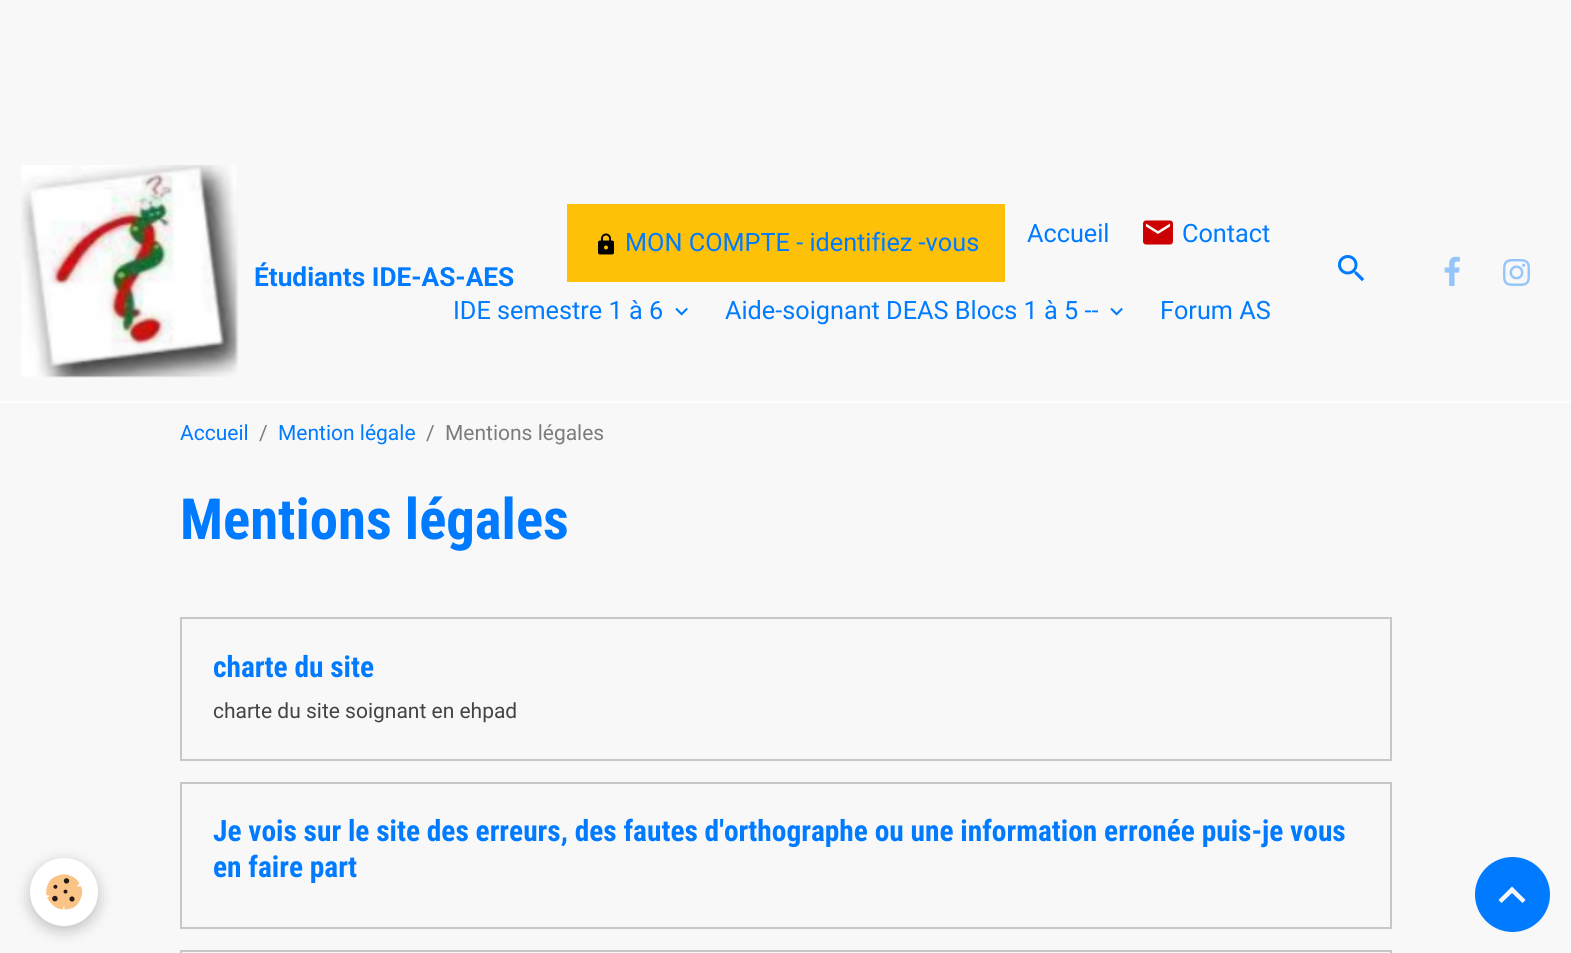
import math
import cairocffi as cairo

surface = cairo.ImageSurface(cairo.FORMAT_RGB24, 1571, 953)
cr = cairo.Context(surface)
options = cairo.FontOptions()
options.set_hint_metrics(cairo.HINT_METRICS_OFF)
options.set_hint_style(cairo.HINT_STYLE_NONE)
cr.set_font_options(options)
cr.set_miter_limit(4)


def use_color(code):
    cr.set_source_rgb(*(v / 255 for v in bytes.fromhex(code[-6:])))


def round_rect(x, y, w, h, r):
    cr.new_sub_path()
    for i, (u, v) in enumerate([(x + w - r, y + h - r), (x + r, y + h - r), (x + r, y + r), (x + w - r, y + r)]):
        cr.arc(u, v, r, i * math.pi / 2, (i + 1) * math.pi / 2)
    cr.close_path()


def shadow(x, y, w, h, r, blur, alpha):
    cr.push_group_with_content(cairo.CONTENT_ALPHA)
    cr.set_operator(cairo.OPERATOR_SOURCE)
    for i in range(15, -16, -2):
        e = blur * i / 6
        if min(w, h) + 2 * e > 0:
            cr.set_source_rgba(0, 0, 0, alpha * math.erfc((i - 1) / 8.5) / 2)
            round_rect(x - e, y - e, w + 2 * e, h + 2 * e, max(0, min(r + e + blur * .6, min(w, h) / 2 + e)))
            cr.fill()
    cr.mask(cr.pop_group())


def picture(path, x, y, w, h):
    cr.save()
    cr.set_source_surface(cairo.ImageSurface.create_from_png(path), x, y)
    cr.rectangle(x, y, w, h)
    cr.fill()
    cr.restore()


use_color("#f8f8f8")
cr.paint()
use_color("#ffffff")
cr.rectangle(0, 401, 1571, 2)
cr.fill()
picture("img1.png", 21, 165, 218, 213)
cr.select_font_face("Roboto", cairo.FONT_SLANT_NORMAL, cairo.FONT_WEIGHT_BOLD)
cr.set_font_size(26.25)
use_color("#007bff")
cr.move_to(254, 286)
cr.show_text("Étudiants IDE-AS-AES")
use_color("#ffc107")
cr.rectangle(567, 204, 438, 78)
cr.fill()
picture("img2.png", 598, 233, 16, 22)
cr.select_font_face("Roboto")
cr.set_font_size(25.25)
use_color("#007bff")
cr.move_to(625, 251)
cr.show_text("MON COMPTE - identifiez -vous")
cr.move_to(1027, 242)
cr.show_text("Accueil")
picture("img3.png", 1143, 220, 30, 25)
cr.move_to(1182, 242)
cr.show_text("Contact")
cr.move_to(453, 319)
cr.show_text("IDE semestre 1 à 6")
picture("img4.png", 675, 307, 13, 9)
cr.move_to(725, 319)
cr.show_text("Aide-soignant DEAS Blocs 1 à 5 --")
picture("img4.png", 1110, 307, 13, 9)
cr.move_to(1160, 319)
cr.show_text("Forum AS")
picture("img5.png", 1338, 255, 27, 27)
picture("img6.png", 1444, 256, 16, 30)
picture("img7.png", 1503, 259, 27, 27)
cr.set_font_size(21)
cr.move_to(180, 440)
cr.show_text("Accueil")
use_color("#7c7c7c")
cr.move_to(259, 440)
cr.show_text("/")
use_color("#007bff")
cr.move_to(278, 440)
cr.show_text("Mention légale")
use_color("#7c7c7c")
cr.move_to(426, 440)
cr.show_text("/")
cr.move_to(445, 440)
cr.show_text("Mentions légales")
cr.select_font_face("Roboto Condensed", cairo.FONT_SLANT_NORMAL, cairo.FONT_WEIGHT_BOLD)
cr.set_font_size(56.75)
use_color("#007bff")
cr.move_to(180, 539)
cr.show_text("Mentions légales")
cr.rectangle(181, 618, 1210, 142)
use_color("#c7c7c7")
cr.stroke()
cr.set_font_size(29.4)
use_color("#007bff")
cr.move_to(213, 677)
cr.show_text("charte du site")
cr.select_font_face("Roboto")
cr.set_font_size(21)
use_color("#444444")
cr.move_to(213, 718)
cr.show_text("charte du site soignant en ehpad")
cr.rectangle(181, 783, 1210, 145)
use_color("#c7c7c7")
cr.stroke()
cr.select_font_face("Roboto Condensed", cairo.FONT_SLANT_NORMAL, cairo.FONT_WEIGHT_BOLD)
cr.set_font_size(29.4)
use_color("#007bff")
cr.move_to(213, 841)
cr.show_text("Je vois sur le site des erreurs, des fautes d'orthographe ou une information erronée puis-je vous")
cr.move_to(213, 877)
cr.show_text("en faire part")
cr.rectangle(181, 951, 1210, 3)
use_color("#c7c7c7")
cr.stroke()
use_color("#000000")
shadow(30, 863, 68, 67, 33.5, 7.5, 0.24)
use_color("#ffffff")
cr.arc(64, 892, 34, 0, 2 * math.pi)
cr.fill()
picture("img8.png", 46, 874, 37, 36)
use_color("#007bff")
cr.arc(1512.5, 894.5, 37.5, 0, 2 * math.pi)
cr.fill()
use_color("#f8f8f8")
cr.new_path()
cr.move_to(1512, 886.5)
cr.line_to(1525.5, 900)
cr.line_to(1522.5, 903)
cr.line_to(1512, 893)
cr.line_to(1501.5, 903)
cr.line_to(1498.5, 900)
cr.close_path()
cr.fill()
surface.write_to_png("result.png")
